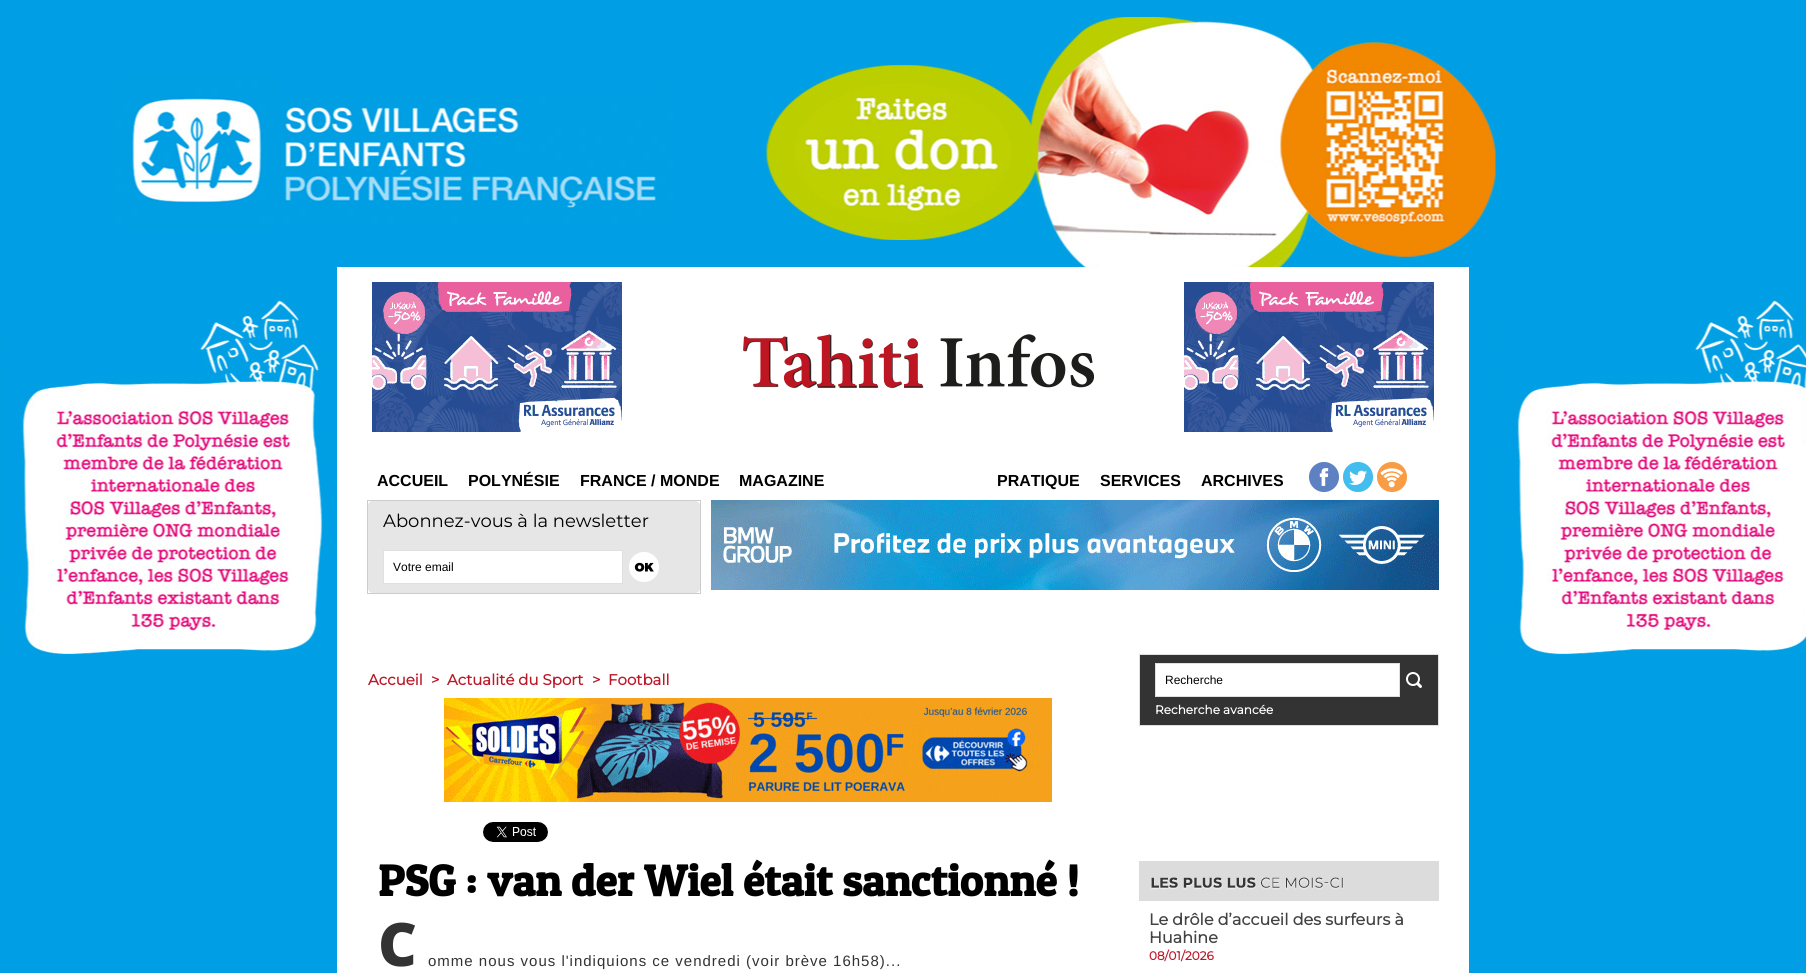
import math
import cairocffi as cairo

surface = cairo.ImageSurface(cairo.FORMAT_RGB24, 1806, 973)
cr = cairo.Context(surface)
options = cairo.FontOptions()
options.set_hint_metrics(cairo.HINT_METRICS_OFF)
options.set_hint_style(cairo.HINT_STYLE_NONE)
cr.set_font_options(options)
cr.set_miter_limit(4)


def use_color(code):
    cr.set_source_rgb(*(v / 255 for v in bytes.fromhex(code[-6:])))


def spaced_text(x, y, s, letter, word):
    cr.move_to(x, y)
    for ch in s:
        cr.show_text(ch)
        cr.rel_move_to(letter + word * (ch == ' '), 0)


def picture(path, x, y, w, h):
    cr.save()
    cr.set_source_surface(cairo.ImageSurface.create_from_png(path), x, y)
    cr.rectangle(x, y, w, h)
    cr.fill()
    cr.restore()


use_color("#ffffff")
cr.paint()
picture("img1.png", 0, 0, 1806, 973)
use_color("#ffffff")
cr.rectangle(337, 267, 1132, 387)
cr.fill()
picture("img2.png", 372, 282, 250, 150)
picture("img3.png", 743, 334, 351, 55)
picture("img2.png", 1184, 282, 250, 150)
cr.select_font_face("Liberation Sans", cairo.FONT_SLANT_NORMAL, cairo.FONT_WEIGHT_BOLD)
cr.set_font_size(16)
use_color("#000000")
cr.move_to(377, 486)
cr.show_text("ACCUEIL")
cr.move_to(468, 486)
cr.show_text("POLYNÉSIE")
cr.move_to(580, 486)
cr.show_text("FRANCE / MONDE")
cr.move_to(739, 486)
cr.show_text("MAGAZINE")
cr.move_to(997, 486)
cr.show_text("PRATIQUE")
cr.move_to(1100, 486)
cr.show_text("SERVICES")
cr.move_to(1201, 486)
cr.show_text("ARCHIVES")
picture("img4.png", 1309, 462, 30, 30)
picture("img5.png", 1343, 462, 30, 30)
picture("img6.png", 1377, 462, 30, 30)
cr.rectangle(367.5, 500.5, 333, 93)
use_color("#cccccc")
cr.set_line_width(1)
cr.stroke()
use_color("#e6e6e6")
cr.new_path()
cr.move_to(373, 501)
cr.line_to(695, 501)
cr.curve_to(698, 501, 700, 503, 700, 506)
cr.line_to(700, 541)
cr.line_to(368, 541)
cr.line_to(368, 506)
cr.curve_to(368, 503, 370, 501, 373, 501)
cr.close_path()
cr.fill()
cr.select_font_face("Montserrat Thin")
cr.set_font_size(18)
use_color("#000000")
cr.move_to(383, 527)
cr.show_text("Abonnez-vous à la newsletter")
use_color("#e6e6e6")
cr.new_path()
cr.move_to(368, 541)
cr.line_to(700, 541)
cr.line_to(700, 588)
cr.curve_to(700, 591, 698, 593, 695, 593)
cr.line_to(373, 593)
cr.curve_to(370, 593, 368, 591, 368, 588)
cr.close_path()
cr.fill()
use_color("#ffffff")
cr.rectangle(383.5, 550.5, 239, 33)
cr.fill_preserve()
use_color("#e0e0e0")
cr.stroke()
cr.select_font_face("Liberation Sans")
cr.set_font_size(12)
use_color("#000000")
cr.move_to(393, 571)
cr.show_text("Votre email")
picture("img7.png", 629, 552, 30, 30)
picture("img8.png", 711, 500, 728, 90)
use_color("#ffffff")
cr.rectangle(337, 654, 1132, 319)
cr.fill()
cr.select_font_face("Montserrat", cairo.FONT_SLANT_NORMAL, cairo.FONT_WEIGHT_BOLD)
cr.set_font_size(15)
use_color("#bb1929")
cr.move_to(368, 685)
cr.show_text("Accueil")
cr.move_to(431, 685)
cr.show_text(">")
cr.move_to(447, 685)
cr.show_text("Actualité du Sport")
cr.move_to(592, 685)
cr.show_text(">")
cr.move_to(608, 685)
cr.show_text("Football")
picture("img9.png", 444, 698, 608, 104)
picture("img10.png", 483, 822, 65, 20)
cr.select_font_face("Patua One", cairo.FONT_SLANT_NORMAL, cairo.FONT_WEIGHT_BOLD)
cr.set_font_size(44)
use_color("#000000")
cr.move_to(378, 896)
cr.show_text("PSG : van der Wiel était sanctionné !")
cr.select_font_face("Noto Sans Black")
cr.set_font_size(60)
use_color("#333333")
spaced_text(378, 966, "C", 1, 0)
cr.select_font_face("Liberation Sans")
cr.set_font_size(15)
spaced_text(428, 966, "omme nous vous l'indiquions ce vendredi (voir brève 16h58)...", 1, 0)
cr.rectangle(1139.5, 654.5, 299, 71)
use_color("#e0e0e0")
cr.stroke()
use_color("#333333")
cr.rectangle(1140, 655, 298, 70)
cr.fill()
use_color("#ffffff")
cr.rectangle(1155.5, 663.5, 244, 33)
cr.fill_preserve()
use_color("#e0e0e0")
cr.stroke()
cr.set_font_size(12)
use_color("#000000")
cr.move_to(1165, 684)
cr.show_text("Recherche")
picture("img11.png", 1406, 672, 16, 16)
cr.select_font_face("Montserrat", cairo.FONT_SLANT_NORMAL, cairo.FONT_WEIGHT_BOLD)
use_color("#ffffff")
cr.move_to(1155, 714)
cr.show_text("Recherche avancée")
picture("img12.png", 1139, 861, 300, 40)
cr.set_font_size(16)
use_color("#424242")
cr.move_to(1149, 925)
cr.show_text("Le drôle d’accueil des surfeurs à")
cr.move_to(1149, 943)
cr.show_text("Huahine")
cr.set_font_size(12)
use_color("#bb1929")
cr.move_to(1149, 960)
cr.show_text("08/01/2026")
surface.write_to_png("result.png")
